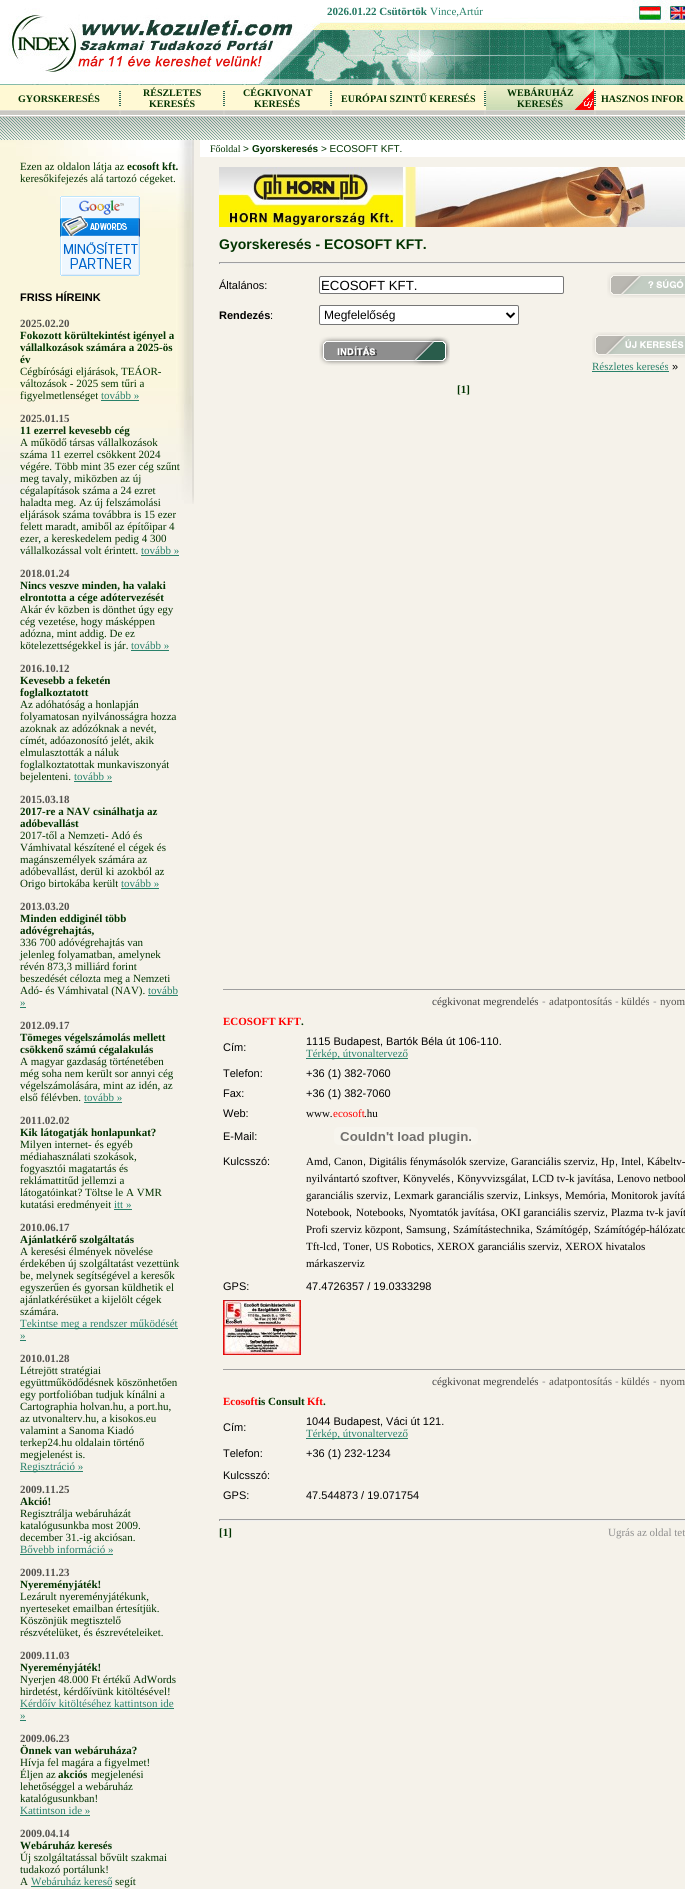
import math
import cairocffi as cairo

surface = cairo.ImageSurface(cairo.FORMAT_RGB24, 685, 1889)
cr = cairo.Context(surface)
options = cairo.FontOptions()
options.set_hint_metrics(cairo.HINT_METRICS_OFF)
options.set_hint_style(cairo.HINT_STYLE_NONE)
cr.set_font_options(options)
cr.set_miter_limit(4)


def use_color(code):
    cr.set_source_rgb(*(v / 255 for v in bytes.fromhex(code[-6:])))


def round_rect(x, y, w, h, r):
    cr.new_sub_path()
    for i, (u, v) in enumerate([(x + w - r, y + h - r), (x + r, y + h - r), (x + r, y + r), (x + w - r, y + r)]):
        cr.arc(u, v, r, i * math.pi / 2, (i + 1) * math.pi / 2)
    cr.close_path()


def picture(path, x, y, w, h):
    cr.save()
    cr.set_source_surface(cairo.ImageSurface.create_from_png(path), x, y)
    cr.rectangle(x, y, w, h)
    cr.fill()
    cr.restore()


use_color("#f5f2ea")
cr.paint()
picture("img1.png", 0, 0, 685, 85)
cr.select_font_face("Liberation Serif", cairo.FONT_SLANT_NORMAL, cairo.FONT_WEIGHT_BOLD)
cr.set_font_size(11)
use_color("#227761")
cr.move_to(327, 15)
cr.show_text("2026.01.22 Csütörtök")
cr.select_font_face("Liberation Serif")
use_color("#28816a")
cr.move_to(430, 15)
cr.show_text("Vince,Artúr")
picture("img2.png", 0, 85, 685, 31)
cr.select_font_face("Liberation Serif", cairo.FONT_SLANT_NORMAL, cairo.FONT_WEIGHT_BOLD)
cr.set_font_size(10)
use_color("#013300")
cr.move_to(18, 102)
cr.show_text("GYORSKERESÉS")
picture("img3.png", 119, 91, 2, 24)
cr.move_to(143, 96)
cr.show_text("RÉSZLETES")
cr.move_to(149, 107)
cr.show_text("KERESÉS")
picture("img3.png", 223, 91, 2, 24)
cr.move_to(243, 96)
cr.show_text("CÉGKIVONAT")
cr.move_to(254, 107)
cr.show_text("KERESÉS")
picture("img3.png", 330, 91, 2, 24)
cr.move_to(341, 102)
cr.show_text("EURÓPAI SZINTŰ KERESÉS")
picture("img3.png", 484, 91, 2, 24)
picture("img4.png", 486, 85, 108, 31)
cr.move_to(507, 96)
cr.show_text("WEBÁRUHÁZ")
cr.move_to(517, 107)
cr.show_text("KERESÉS")
picture("img3.png", 594, 91, 2, 24)
cr.move_to(601, 102)
cr.show_text("HASZNOS INFOR")
picture("img5.png", 0, 116, 685, 24)
picture("img6.png", 0, 140, 194, 364)
cr.select_font_face("Liberation Serif")
cr.set_font_size(11)
cr.move_to(20, 170)
cr.show_text("Ezen az oldalon látja az")
cr.select_font_face("Liberation Serif", cairo.FONT_SLANT_NORMAL, cairo.FONT_WEIGHT_BOLD)
cr.move_to(127, 170)
cr.show_text("ecosoft kft.")
cr.select_font_face("Liberation Serif")
cr.move_to(20, 182)
cr.show_text("keresőkifejezés alá tartozó cégeket.")
picture("img7.png", 60, 196, 80, 80)
cr.select_font_face("Liberation Sans", cairo.FONT_SLANT_NORMAL, cairo.FONT_WEIGHT_BOLD)
use_color("#000000")
cr.move_to(20, 301)
cr.show_text("FRISS HÍREINK")
cr.select_font_face("Liberation Serif", cairo.FONT_SLANT_NORMAL, cairo.FONT_WEIGHT_BOLD)
use_color("#53524f")
cr.move_to(20, 327)
cr.show_text("2025.02.20")
use_color("#013300")
cr.move_to(20, 339)
cr.show_text("Fokozott körültekintést igényel a")
cr.move_to(20, 351)
cr.show_text("vállalkozások számára a 2025-ös")
cr.move_to(20, 363)
cr.show_text("év")
cr.select_font_face("Liberation Serif")
cr.move_to(20, 375)
cr.show_text("Cégbírósági eljárások, TEÁOR-")
cr.move_to(20, 387)
cr.show_text("változások - 2025 sem tűri a")
cr.move_to(20, 399)
cr.show_text("figyelmetlenséget")
use_color("#28816a")
cr.rectangle(101, 400, 38, 1)
cr.fill()
cr.move_to(101, 399)
cr.show_text("tovább »")
cr.select_font_face("Liberation Serif", cairo.FONT_SLANT_NORMAL, cairo.FONT_WEIGHT_BOLD)
use_color("#53524f")
cr.move_to(20, 422)
cr.show_text("2025.01.15")
use_color("#013300")
cr.move_to(20, 434)
cr.show_text("11 ezerrel kevesebb cég")
cr.select_font_face("Liberation Serif")
cr.move_to(20, 446)
cr.show_text("A működő társas vállalkozások")
cr.move_to(20, 458)
cr.show_text("száma 11 ezerrel csökkent 2024")
cr.move_to(20, 470)
cr.show_text("végére. Több mint 35 ezer cég szűnt")
cr.move_to(20, 482)
cr.show_text("meg tavaly, miközben az új")
cr.move_to(20, 494)
cr.show_text("cégalapítások száma a 24 ezret")
cr.move_to(20, 506)
cr.show_text("haladta meg. Az új felszámolási")
cr.move_to(20, 518)
cr.show_text("eljárások száma továbbra is 15 ezer")
cr.move_to(20, 530)
cr.show_text("felett maradt, amiből az építőipar 4")
cr.move_to(20, 542)
cr.show_text("ezer, a kereskedelem pedig 4 300")
cr.move_to(20, 554)
cr.show_text("vállalkozással volt érintett.")
use_color("#28816a")
cr.move_to(141, 554)
cr.show_text("tovább »")
cr.rectangle(141, 555, 38, 1)
cr.fill()
cr.select_font_face("Liberation Serif", cairo.FONT_SLANT_NORMAL, cairo.FONT_WEIGHT_BOLD)
use_color("#53524f")
cr.move_to(20, 577)
cr.show_text("2018.01.24")
use_color("#013300")
cr.move_to(20, 589)
cr.show_text("Nincs veszve minden, ha valaki")
cr.move_to(20, 601)
cr.show_text("elrontotta a cége adótervezését")
cr.select_font_face("Liberation Serif")
cr.move_to(20, 613)
cr.show_text("Akár év közben is dönthet úgy egy")
cr.move_to(20, 625)
cr.show_text("cég vezetése, hogy másképpen")
cr.move_to(20, 637)
cr.show_text("adózna, mint addig. De ez")
cr.move_to(20, 649)
cr.show_text("kötelezettségekkel is jár.")
use_color("#28816a")
cr.move_to(131, 649)
cr.show_text("tovább »")
cr.rectangle(131, 650, 38, 1)
cr.fill()
cr.select_font_face("Liberation Serif", cairo.FONT_SLANT_NORMAL, cairo.FONT_WEIGHT_BOLD)
use_color("#53524f")
cr.move_to(20, 672)
cr.show_text("2016.10.12")
use_color("#013300")
cr.move_to(20, 684)
cr.show_text("Kevesebb a feketén")
cr.move_to(20, 696)
cr.show_text("foglalkoztatott")
cr.select_font_face("Liberation Serif")
cr.move_to(20, 708)
cr.show_text("Az adóhatóság a honlapján")
cr.move_to(20, 720)
cr.show_text("folyamatosan nyilvánosságra hozza")
cr.move_to(20, 732)
cr.show_text("azoknak az adózóknak a nevét,")
cr.move_to(20, 744)
cr.show_text("címét, adóazonosító jelét, akik")
cr.move_to(20, 756)
cr.show_text("elmulasztották a náluk")
cr.move_to(20, 768)
cr.show_text("foglalkoztatottak munkaviszonyát")
cr.move_to(20, 780)
cr.show_text("bejelenteni.")
use_color("#28816a")
cr.move_to(74, 780)
cr.show_text("tovább »")
cr.rectangle(74, 781, 38, 1)
cr.fill()
cr.select_font_face("Liberation Serif", cairo.FONT_SLANT_NORMAL, cairo.FONT_WEIGHT_BOLD)
use_color("#53524f")
cr.move_to(20, 803)
cr.show_text("2015.03.18")
use_color("#013300")
cr.move_to(20, 815)
cr.show_text("2017-re a NAV csinálhatja az")
cr.move_to(20, 827)
cr.show_text("adóbevallást")
cr.select_font_face("Liberation Serif")
cr.move_to(20, 839)
cr.show_text("2017-től a Nemzeti- Adó és")
cr.move_to(20, 851)
cr.show_text("Vámhivatal készítené el cégek és")
cr.move_to(20, 863)
cr.show_text("magánszemélyek számára az")
cr.move_to(20, 875)
cr.show_text("adóbevallást, derül ki azokból az")
cr.move_to(20, 887)
cr.show_text("Origo birtokába került")
use_color("#28816a")
cr.rectangle(121, 888, 38, 1)
cr.fill()
cr.move_to(121, 887)
cr.show_text("tovább »")
cr.select_font_face("Liberation Serif", cairo.FONT_SLANT_NORMAL, cairo.FONT_WEIGHT_BOLD)
use_color("#53524f")
cr.move_to(20, 910)
cr.show_text("2013.03.20")
use_color("#013300")
cr.move_to(20, 922)
cr.show_text("Minden eddiginél több")
cr.move_to(20, 934)
cr.show_text("adóvégrehajtás,")
cr.select_font_face("Liberation Serif")
cr.move_to(20, 946)
cr.show_text("336 700 adóvégrehajtás van")
cr.move_to(20, 958)
cr.show_text("jelenleg folyamatban, amelynek")
cr.move_to(20, 970)
cr.show_text("révén 873,3 milliárd forint")
cr.move_to(20, 982)
cr.show_text("beszedését célozta meg a Nemzeti")
cr.move_to(20, 994)
cr.show_text("Adó- és Vámhivatal (NAV).")
use_color("#28816a")
cr.move_to(148, 994)
cr.show_text("tovább")
cr.rectangle(148, 995, 30, 1)
cr.fill()
cr.move_to(20, 1006)
cr.show_text("»")
cr.rectangle(20, 1007, 6, 1)
cr.fill()
cr.select_font_face("Liberation Serif", cairo.FONT_SLANT_NORMAL, cairo.FONT_WEIGHT_BOLD)
use_color("#53524f")
cr.move_to(20, 1029)
cr.show_text("2012.09.17")
use_color("#013300")
cr.move_to(20, 1041)
cr.show_text("Tömeges végelszámolás mellett")
cr.move_to(20, 1053)
cr.show_text("csökkenő számú cégalakulás")
cr.select_font_face("Liberation Serif")
cr.move_to(20, 1065)
cr.show_text("A magyar gazdaság történetében")
cr.move_to(20, 1077)
cr.show_text("még soha nem került sor annyi cég")
cr.move_to(20, 1089)
cr.show_text("végelszámolására, mint az idén, az")
cr.move_to(20, 1101)
cr.show_text("első félévben.")
use_color("#28816a")
cr.move_to(84, 1101)
cr.show_text("tovább »")
cr.rectangle(84, 1102, 38, 1)
cr.fill()
cr.select_font_face("Liberation Serif", cairo.FONT_SLANT_NORMAL, cairo.FONT_WEIGHT_BOLD)
use_color("#53524f")
cr.move_to(20, 1124)
cr.show_text("2011.02.02")
use_color("#013300")
cr.move_to(20, 1136)
cr.show_text("Kik látogatják honlapunkat?")
cr.select_font_face("Liberation Serif")
cr.move_to(20, 1148)
cr.show_text("Milyen internet- és egyéb")
cr.move_to(20, 1160)
cr.show_text("médiahasználati szokások,")
cr.move_to(20, 1172)
cr.show_text("fogyasztói magatartás és")
cr.move_to(20, 1184)
cr.show_text("reklámattitűd jellemzi a")
cr.move_to(20, 1196)
cr.show_text("látogatóinkat? Töltse le A VMR")
cr.move_to(20, 1208)
cr.show_text("kutatási eredményeit")
use_color("#28816a")
cr.rectangle(114, 1209, 18, 1)
cr.fill()
cr.move_to(114, 1208)
cr.show_text("itt »")
cr.select_font_face("Liberation Serif", cairo.FONT_SLANT_NORMAL, cairo.FONT_WEIGHT_BOLD)
use_color("#53524f")
cr.move_to(20, 1231)
cr.show_text("2010.06.17")
use_color("#013300")
cr.move_to(20, 1243)
cr.show_text("Ajánlatkérő szolgáltatás")
cr.select_font_face("Liberation Serif")
cr.move_to(20, 1255)
cr.show_text("A keresési élmények növelése")
cr.move_to(20, 1267)
cr.show_text("érdekében új szolgáltatást vezettünk")
cr.move_to(20, 1279)
cr.show_text("be, melynek segítségével a keresők")
cr.move_to(20, 1291)
cr.show_text("egyszerűen és gyorsan küldhetik el")
cr.move_to(20, 1303)
cr.show_text("ajánlatkérésüket a kijelölt cégek")
cr.move_to(20, 1315)
cr.show_text("számára.")
use_color("#28816a")
cr.rectangle(20, 1328, 158, 1)
cr.fill()
cr.move_to(20, 1327)
cr.show_text("Tekintse meg a rendszer működését")
cr.move_to(20, 1339)
cr.show_text("»")
cr.rectangle(20, 1340, 6, 1)
cr.fill()
cr.select_font_face("Liberation Serif", cairo.FONT_SLANT_NORMAL, cairo.FONT_WEIGHT_BOLD)
use_color("#53524f")
cr.move_to(20, 1362)
cr.show_text("2010.01.28")
cr.select_font_face("Liberation Serif")
use_color("#013300")
cr.move_to(20, 1374)
cr.show_text("Létrejött stratégiai")
cr.move_to(20, 1386)
cr.show_text("együttműködődésnek köszönhetően")
cr.move_to(20, 1398)
cr.show_text("egy portfolióban tudjuk kínálni a")
cr.move_to(20, 1410)
cr.show_text("Cartographia holvan.hu, a port.hu,")
cr.move_to(20, 1422)
cr.show_text("az utvonalterv.hu, a kisokos.eu")
cr.move_to(20, 1434)
cr.show_text("valamint a Sanoma Kiadó")
cr.move_to(20, 1446)
cr.show_text("terkep24.hu oldalain történő")
cr.move_to(20, 1458)
cr.show_text("megjelenést is.")
use_color("#28816a")
cr.rectangle(20, 1471, 63, 1)
cr.fill()
cr.move_to(20, 1470)
cr.show_text("Regisztráció »")
cr.select_font_face("Liberation Serif", cairo.FONT_SLANT_NORMAL, cairo.FONT_WEIGHT_BOLD)
use_color("#53524f")
cr.move_to(20, 1493)
cr.show_text("2009.11.25")
use_color("#013300")
cr.move_to(20, 1505)
cr.show_text("Akció!")
cr.select_font_face("Liberation Serif")
cr.move_to(20, 1517)
cr.show_text("Regisztrálja webáruházát")
cr.move_to(20, 1529)
cr.show_text("katalógusunkba most 2009.")
cr.move_to(20, 1541)
cr.show_text("december 31.-ig akciósan.")
use_color("#28816a")
cr.move_to(20, 1553)
cr.show_text("Bővebb információ »")
cr.rectangle(20, 1554, 93, 1)
cr.fill()
cr.select_font_face("Liberation Serif", cairo.FONT_SLANT_NORMAL, cairo.FONT_WEIGHT_BOLD)
use_color("#53524f")
cr.move_to(20, 1576)
cr.show_text("2009.11.23")
use_color("#013300")
cr.move_to(20, 1588)
cr.show_text("Nyereményjáték!")
cr.select_font_face("Liberation Serif")
cr.move_to(20, 1600)
cr.show_text("Lezárult nyereményjátékunk,")
cr.move_to(20, 1612)
cr.show_text("nyerteseket emailban értesítjük.")
cr.move_to(20, 1624)
cr.show_text("Köszönjük megtisztelő")
cr.move_to(20, 1636)
cr.show_text("részvételüket, és észrevételeiket.")
cr.select_font_face("Liberation Serif", cairo.FONT_SLANT_NORMAL, cairo.FONT_WEIGHT_BOLD)
use_color("#53524f")
cr.move_to(20, 1659)
cr.show_text("2009.11.03")
use_color("#013300")
cr.move_to(20, 1671)
cr.show_text("Nyereményjáték!")
cr.select_font_face("Liberation Serif")
cr.move_to(20, 1683)
cr.show_text("Nyerjen 48.000 Ft értékű AdWords")
cr.move_to(20, 1695)
cr.show_text("hirdetést, kérdőívünk kitöltésével!")
use_color("#28816a")
cr.move_to(20, 1707)
cr.show_text("Kérdőív kitöltéséhez kattintson ide")
cr.rectangle(20, 1708, 154, 1)
cr.fill()
cr.move_to(20, 1719)
cr.show_text("»")
cr.rectangle(20, 1720, 6, 1)
cr.fill()
cr.select_font_face("Liberation Serif", cairo.FONT_SLANT_NORMAL, cairo.FONT_WEIGHT_BOLD)
use_color("#53524f")
cr.move_to(20, 1742)
cr.show_text("2009.06.23")
use_color("#013300")
cr.move_to(20, 1754)
cr.show_text("Önnek van webáruháza?")
cr.select_font_face("Liberation Serif")
cr.move_to(20, 1766)
cr.show_text("Hívja fel magára a figyelmet!")
cr.move_to(20, 1778)
cr.show_text("Éljen az")
cr.select_font_face("Liberation Serif", cairo.FONT_SLANT_NORMAL, cairo.FONT_WEIGHT_BOLD)
cr.move_to(58, 1778)
cr.show_text("akciós")
cr.select_font_face("Liberation Serif")
cr.move_to(91, 1778)
cr.show_text("megjelenési")
cr.move_to(20, 1790)
cr.show_text("lehetőséggel a webáruház")
cr.move_to(20, 1802)
cr.show_text("katalógusunkban!")
use_color("#28816a")
cr.move_to(20, 1814)
cr.show_text("Kattintson ide »")
cr.rectangle(20, 1815, 70, 1)
cr.fill()
cr.select_font_face("Liberation Serif", cairo.FONT_SLANT_NORMAL, cairo.FONT_WEIGHT_BOLD)
use_color("#53524f")
cr.move_to(20, 1837)
cr.show_text("2009.04.14")
use_color("#013300")
cr.move_to(20, 1849)
cr.show_text("Webáruház keresés")
cr.select_font_face("Liberation Serif")
cr.move_to(20, 1861)
cr.show_text("Új szolgáltatással bővült szakmai")
cr.move_to(20, 1873)
cr.show_text("tudakozó portálunk!")
cr.move_to(20, 1885)
cr.show_text("A")
use_color("#28816a")
cr.move_to(31, 1885)
cr.show_text("Webáruház kereső")
cr.rectangle(31, 1886, 81, 1)
cr.fill()
use_color("#013300")
cr.move_to(115, 1885)
cr.show_text("segít")
use_color("#ffffff")
cr.rectangle(200, 140, 485, 17)
cr.fill()
cr.set_font_size(10)
use_color("#013300")
cr.move_to(210, 152)
cr.show_text("Főoldal")
cr.select_font_face("Liberation Sans")
cr.move_to(243, 152)
cr.show_text(">")
cr.select_font_face("Liberation Sans", cairo.FONT_SLANT_NORMAL, cairo.FONT_WEIGHT_BOLD)
cr.move_to(252, 152)
cr.show_text("Gyorskeresés")
cr.select_font_face("Liberation Sans")
cr.move_to(321, 152)
cr.show_text("> ECOSOFT KFT.")
picture("img8.png", 219, 167, 466, 60)
cr.select_font_face("Liberation Sans", cairo.FONT_SLANT_NORMAL, cairo.FONT_WEIGHT_BOLD)
cr.set_font_size(14)
cr.move_to(219, 249)
cr.show_text("Gyorskeresés - ECOSOFT KFT.")
use_color("#9f9f9f")
cr.rectangle(219, 262, 466, 1)
cr.fill()
use_color("#eeeeee")
cr.rectangle(219, 263, 466, 1)
cr.fill()
use_color("#9f9f9f")
cr.rectangle(219, 262, 1, 2)
cr.fill()
cr.select_font_face("Liberation Sans")
cr.set_font_size(11)
use_color("#000000")
cr.move_to(219, 289)
cr.show_text("Általános:")
use_color("#ffffff")
round_rect(319.5, 276.5, 244, 17, 1.5)
cr.fill_preserve()
use_color("#767676")
cr.set_line_width(1)
cr.stroke()
cr.set_font_size(13.25)
use_color("#000000")
cr.move_to(321, 290)
cr.show_text("ECOSOFT KFT.")
picture("img9.png", 607, 272, 78, 26)
cr.select_font_face("Liberation Sans", cairo.FONT_SLANT_NORMAL, cairo.FONT_WEIGHT_BOLD)
cr.set_font_size(11)
cr.move_to(219, 319)
cr.show_text("Rendezés")
cr.select_font_face("Liberation Sans")
cr.move_to(270, 319)
cr.show_text(":")
use_color("#ffffff")
round_rect(319.5, 305.5, 199, 19, 1.5)
cr.fill_preserve()
use_color("#767676")
cr.stroke()
cr.new_path()
cr.move_to(506.5, 313)
cr.line_to(510.5, 317)
cr.line_to(514.5, 313)
use_color("#000000")
cr.set_line_width(2)
cr.stroke()
cr.set_font_size(12)
cr.move_to(324, 319)
cr.show_text("Megfelelőség")
picture("img10.png", 319, 336, 131, 30)
picture("img11.png", 592, 332, 93, 26)
cr.select_font_face("Liberation Serif")
cr.set_font_size(11)
use_color("#28816a")
cr.move_to(592, 370)
cr.show_text("Részletes keresés")
cr.rectangle(592, 371, 77, 1)
cr.fill()
cr.select_font_face("Liberation Sans")
use_color("#000000")
cr.move_to(672, 370)
cr.show_text("»")
cr.select_font_face("Liberation Serif", cairo.FONT_SLANT_NORMAL, cairo.FONT_WEIGHT_BOLD)
use_color("#013300")
cr.move_to(457, 393)
cr.show_text("[1]")
use_color("#9f9f9f")
cr.rectangle(223, 989, 462, 1)
cr.fill()
cr.select_font_face("Liberation Serif")
use_color("#404040")
cr.move_to(432, 1005)
cr.show_text("cégkivonat megrendelés")
cr.select_font_face("Liberation Sans")
use_color("#8e8e8e")
cr.move_to(542, 1005)
cr.show_text("-")
cr.select_font_face("Liberation Serif")
use_color("#53524f")
cr.move_to(549, 1005)
cr.show_text("adatpontosítás")
cr.select_font_face("Liberation Sans")
use_color("#8e8e8e")
cr.move_to(615, 1005)
cr.show_text("-")
cr.select_font_face("Liberation Serif")
use_color("#53524f")
cr.move_to(621, 1005)
cr.show_text("küldés")
cr.select_font_face("Liberation Sans")
use_color("#8e8e8e")
cr.move_to(653, 1005)
cr.show_text("-")
cr.select_font_face("Liberation Serif")
use_color("#53524f")
cr.move_to(660, 1005)
cr.show_text("nyom")
cr.select_font_face("Liberation Serif", cairo.FONT_SLANT_NORMAL, cairo.FONT_WEIGHT_BOLD)
use_color("#ff0000")
cr.move_to(223, 1025)
cr.show_text("ECOSOFT KFT")
use_color("#013300")
cr.move_to(301, 1025)
cr.show_text(".")
cr.select_font_face("Liberation Sans")
use_color("#000000")
cr.move_to(223, 1051)
cr.show_text("Cím:")
cr.move_to(306, 1045)
cr.show_text("1115 Budapest, Bartók Béla út 106-110.")
use_color("#28816a")
cr.rectangle(306, 1058, 102, 1)
cr.fill()
cr.select_font_face("Liberation Serif")
cr.move_to(306, 1057)
cr.show_text("Térkép, útvonaltervező")
cr.select_font_face("Liberation Sans")
use_color("#000000")
cr.move_to(223, 1077)
cr.show_text("Telefon:")
cr.move_to(306, 1077)
cr.show_text("+36 (1) 382-7060")
cr.move_to(223, 1097)
cr.show_text("Fax:")
cr.move_to(306, 1097)
cr.show_text("+36 (1) 382-7060")
cr.move_to(223, 1117)
cr.show_text("Web:")
cr.select_font_face("Liberation Serif")
cr.move_to(306, 1117)
cr.show_text("www.")
use_color("#ff0000")
cr.move_to(333, 1117)
cr.show_text("ecosoft")
use_color("#000000")
cr.move_to(364, 1117)
cr.show_text(".hu")
cr.select_font_face("Liberation Sans")
cr.move_to(223, 1140)
cr.show_text("E-Mail:")
picture("img12.png", 334, 1127, 144, 18)
cr.move_to(223, 1165)
cr.show_text("Kulcsszó:")
cr.select_font_face("Liberation Serif")
cr.move_to(306, 1165)
cr.show_text("Amd")
cr.select_font_face("Liberation Sans")
cr.move_to(328, 1165)
cr.show_text(",")
cr.select_font_face("Liberation Serif")
cr.move_to(334, 1165)
cr.show_text("Canon")
cr.select_font_face("Liberation Sans")
cr.move_to(363, 1165)
cr.show_text(",")
cr.select_font_face("Liberation Serif")
cr.move_to(369, 1165)
cr.show_text("Digitális fénymásolók szervize")
cr.select_font_face("Liberation Sans")
cr.move_to(505, 1165)
cr.show_text(",")
cr.select_font_face("Liberation Serif")
cr.move_to(511, 1165)
cr.show_text("Garanciális szerviz")
cr.select_font_face("Liberation Sans")
cr.move_to(595, 1165)
cr.show_text(",")
cr.select_font_face("Liberation Serif")
cr.move_to(601, 1165)
cr.show_text("Hp")
cr.select_font_face("Liberation Sans")
cr.move_to(615, 1165)
cr.show_text(",")
cr.select_font_face("Liberation Serif")
cr.move_to(621, 1165)
cr.show_text("Intel")
cr.select_font_face("Liberation Sans")
cr.move_to(641, 1165)
cr.show_text(",")
cr.select_font_face("Liberation Serif")
cr.move_to(647, 1165)
cr.show_text("Kábeltv-")
cr.move_to(306, 1182)
cr.show_text("nyilvántartó szoftver")
cr.select_font_face("Liberation Sans")
cr.move_to(397, 1182)
cr.show_text(",")
cr.select_font_face("Liberation Serif")
cr.move_to(403, 1182)
cr.show_text("Könyvelés")
cr.select_font_face("Liberation Sans")
cr.move_to(451, 1182)
cr.show_text(",")
cr.select_font_face("Liberation Serif")
cr.move_to(457, 1182)
cr.show_text("Könyvvizsgálat")
cr.select_font_face("Liberation Sans")
cr.move_to(526, 1182)
cr.show_text(",")
cr.select_font_face("Liberation Serif")
cr.move_to(532, 1182)
cr.show_text("LCD tv-k javítása")
cr.select_font_face("Liberation Sans")
cr.move_to(611, 1182)
cr.show_text(",")
cr.select_font_face("Liberation Serif")
cr.move_to(617, 1182)
cr.show_text("Lenovo netbook")
cr.move_to(306, 1199)
cr.show_text("garanciális szerviz")
cr.select_font_face("Liberation Sans")
cr.move_to(388, 1199)
cr.show_text(",")
cr.select_font_face("Liberation Serif")
cr.move_to(394, 1199)
cr.show_text("Lexmark garanciális szerviz")
cr.select_font_face("Liberation Sans")
cr.move_to(518, 1199)
cr.show_text(",")
cr.select_font_face("Liberation Serif")
cr.move_to(524, 1199)
cr.show_text("Linksys")
cr.select_font_face("Liberation Sans")
cr.move_to(559, 1199)
cr.show_text(",")
cr.select_font_face("Liberation Serif")
cr.move_to(565, 1199)
cr.show_text("Memória")
cr.select_font_face("Liberation Sans")
cr.move_to(605, 1199)
cr.show_text(",")
cr.select_font_face("Liberation Serif")
cr.move_to(611, 1199)
cr.show_text("Monitorok javítá")
cr.move_to(306, 1216)
cr.show_text("Notebook")
cr.select_font_face("Liberation Sans")
cr.move_to(349, 1216)
cr.show_text(",")
cr.select_font_face("Liberation Serif")
cr.move_to(356, 1216)
cr.show_text("Notebooks")
cr.select_font_face("Liberation Sans")
cr.move_to(403, 1216)
cr.show_text(",")
cr.select_font_face("Liberation Serif")
cr.move_to(409, 1216)
cr.show_text("Nyomtatók javítása")
cr.select_font_face("Liberation Sans")
cr.move_to(495, 1216)
cr.show_text(",")
cr.select_font_face("Liberation Serif")
cr.move_to(501, 1216)
cr.show_text("OKI garanciális szerviz")
cr.select_font_face("Liberation Sans")
cr.move_to(605, 1216)
cr.show_text(",")
cr.select_font_face("Liberation Serif")
cr.move_to(611, 1216)
cr.show_text("Plazma tv-k javít")
cr.move_to(306, 1233)
cr.show_text("Profi szerviz központ")
cr.select_font_face("Liberation Sans")
cr.move_to(400, 1233)
cr.show_text(",")
cr.select_font_face("Liberation Serif")
cr.move_to(406, 1233)
cr.show_text("Samsung")
cr.select_font_face("Liberation Sans")
cr.move_to(447, 1233)
cr.show_text(",")
cr.select_font_face("Liberation Serif")
cr.move_to(453, 1233)
cr.show_text("Számítástechnika")
cr.select_font_face("Liberation Sans")
cr.move_to(530, 1233)
cr.show_text(",")
cr.select_font_face("Liberation Serif")
cr.move_to(536, 1233)
cr.show_text("Számítógép")
cr.select_font_face("Liberation Sans")
cr.move_to(588, 1233)
cr.show_text(",")
cr.select_font_face("Liberation Serif")
cr.move_to(594, 1233)
cr.show_text("Számítógép-hálózato")
cr.move_to(306, 1250)
cr.show_text("Tft-lcd")
cr.select_font_face("Liberation Sans")
cr.move_to(337, 1250)
cr.show_text(",")
cr.select_font_face("Liberation Serif")
cr.move_to(343, 1250)
cr.show_text("Toner")
cr.select_font_face("Liberation Sans")
cr.move_to(369, 1250)
cr.show_text(",")
cr.select_font_face("Liberation Serif")
cr.move_to(375, 1250)
cr.show_text("US Robotics")
cr.select_font_face("Liberation Sans")
cr.move_to(431, 1250)
cr.show_text(",")
cr.select_font_face("Liberation Serif")
cr.move_to(437, 1250)
cr.show_text("XEROX garanciális szerviz")
cr.select_font_face("Liberation Sans")
cr.move_to(559, 1250)
cr.show_text(",")
cr.select_font_face("Liberation Serif")
cr.move_to(565, 1250)
cr.show_text("XEROX hivatalos")
cr.move_to(306, 1267)
cr.show_text("márkaszerviz")
cr.select_font_face("Liberation Sans")
cr.move_to(223, 1290)
cr.show_text("GPS:")
cr.move_to(306, 1290)
cr.show_text("47.4726357 / 19.0333298")
picture("img13.png", 223, 1300, 78, 55)
use_color("#9f9f9f")
cr.rectangle(223, 1369, 462, 1)
cr.fill()
cr.select_font_face("Liberation Serif")
use_color("#404040")
cr.move_to(432, 1385)
cr.show_text("cégkivonat megrendelés")
cr.select_font_face("Liberation Sans")
use_color("#8e8e8e")
cr.move_to(542, 1385)
cr.show_text("-")
cr.select_font_face("Liberation Serif")
use_color("#53524f")
cr.move_to(549, 1385)
cr.show_text("adatpontosítás")
cr.select_font_face("Liberation Sans")
use_color("#8e8e8e")
cr.move_to(615, 1385)
cr.show_text("-")
cr.select_font_face("Liberation Serif")
use_color("#53524f")
cr.move_to(621, 1385)
cr.show_text("küldés")
cr.select_font_face("Liberation Sans")
use_color("#8e8e8e")
cr.move_to(653, 1385)
cr.show_text("-")
cr.select_font_face("Liberation Serif")
use_color("#53524f")
cr.move_to(660, 1385)
cr.show_text("nyom")
cr.select_font_face("Liberation Serif", cairo.FONT_SLANT_NORMAL, cairo.FONT_WEIGHT_BOLD)
use_color("#ff0000")
cr.move_to(223, 1405)
cr.show_text("Ecosoft")
use_color("#013300")
cr.move_to(258, 1405)
cr.show_text("is Consult")
use_color("#ff0000")
cr.move_to(307, 1405)
cr.show_text("Kft")
use_color("#013300")
cr.move_to(323, 1405)
cr.show_text(".")
cr.select_font_face("Liberation Sans")
use_color("#000000")
cr.move_to(223, 1431)
cr.show_text("Cím:")
cr.move_to(306, 1425)
cr.show_text("1044 Budapest, Váci út 121.")
use_color("#28816a")
cr.rectangle(306, 1438, 102, 1)
cr.fill()
cr.select_font_face("Liberation Serif")
cr.move_to(306, 1437)
cr.show_text("Térkép, útvonaltervező")
cr.select_font_face("Liberation Sans")
use_color("#000000")
cr.move_to(223, 1457)
cr.show_text("Telefon:")
cr.move_to(306, 1457)
cr.show_text("+36 (1) 232-1234")
cr.move_to(223, 1479)
cr.show_text("Kulcsszó:")
cr.move_to(223, 1499)
cr.show_text("GPS:")
cr.move_to(306, 1499)
cr.show_text("47.544873 / 19.071754")
use_color("#9f9f9f")
cr.rectangle(219, 1519, 466, 1)
cr.fill()
use_color("#eeeeee")
cr.rectangle(219, 1520, 466, 1)
cr.fill()
use_color("#9f9f9f")
cr.rectangle(219, 1519, 1, 2)
cr.fill()
cr.select_font_face("Liberation Serif", cairo.FONT_SLANT_NORMAL, cairo.FONT_WEIGHT_BOLD)
use_color("#013300")
cr.move_to(219, 1536)
cr.show_text("[1]")
cr.select_font_face("Liberation Serif")
use_color("#8e8e8e")
cr.move_to(608, 1536)
cr.show_text("Ugrás az oldal tet")
surface.write_to_png("result.png")
